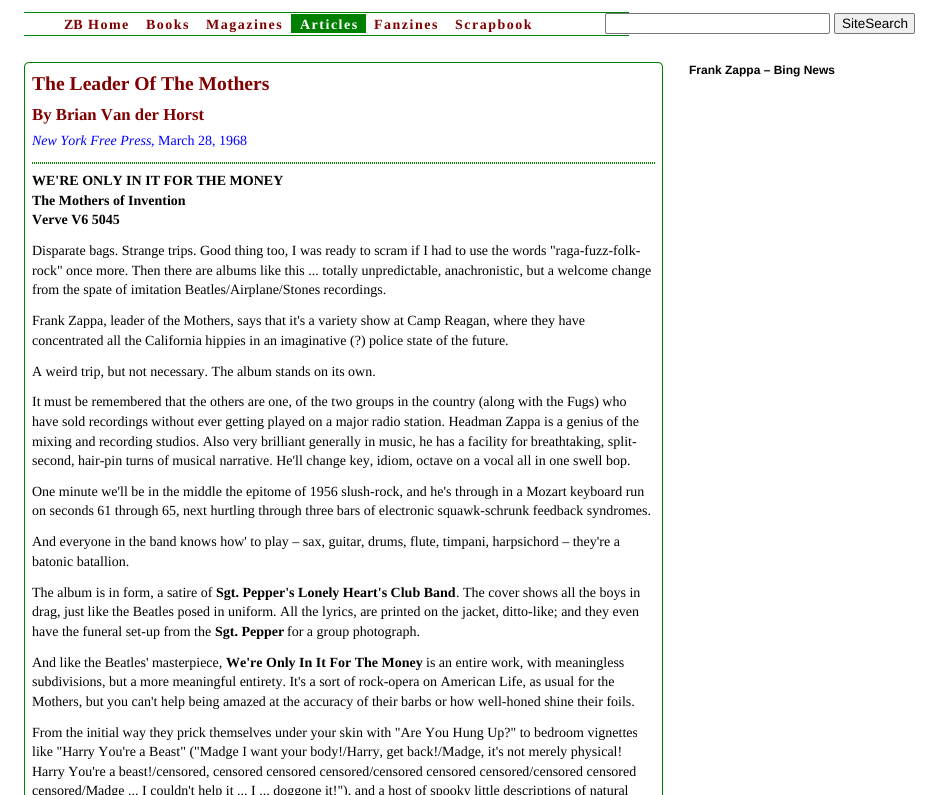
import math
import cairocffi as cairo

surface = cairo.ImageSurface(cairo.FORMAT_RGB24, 935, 795)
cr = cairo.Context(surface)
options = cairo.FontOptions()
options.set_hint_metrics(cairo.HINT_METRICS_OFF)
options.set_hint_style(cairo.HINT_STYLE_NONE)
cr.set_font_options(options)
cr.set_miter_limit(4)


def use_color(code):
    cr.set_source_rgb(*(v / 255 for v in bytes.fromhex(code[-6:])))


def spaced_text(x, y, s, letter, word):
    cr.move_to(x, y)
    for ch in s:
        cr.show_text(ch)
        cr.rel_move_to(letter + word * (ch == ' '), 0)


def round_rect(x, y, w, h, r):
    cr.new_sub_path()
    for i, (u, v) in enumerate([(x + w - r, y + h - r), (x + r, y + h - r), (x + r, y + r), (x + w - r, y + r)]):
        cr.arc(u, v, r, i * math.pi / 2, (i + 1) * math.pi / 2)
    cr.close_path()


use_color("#ffffff")
cr.paint()
use_color("#008000")
cr.rectangle(24, 12, 605, 1)
cr.fill()
cr.rectangle(24, 35, 605, 1)
cr.fill()
cr.select_font_face("Liberation Serif", cairo.FONT_SLANT_NORMAL, cairo.FONT_WEIGHT_BOLD)
cr.set_font_size(14)
use_color("#800000")
cr.move_to(64, 29)
cr.show_text("ZB")
spaced_text(88, 29, "Home", 1.5, 0)
spaced_text(146, 29, "Books", 1.5, 0)
spaced_text(206, 29, "Magazines", 1.5, 0)
use_color("#008000")
cr.rectangle(291, 14, 75, 19)
cr.fill()
use_color("#ffffff")
spaced_text(300, 29, "Articles", 1.5, 0)
use_color("#800000")
spaced_text(374, 29, "Fanzines", 1.5, 0)
spaced_text(455, 29, "Scrapbook", 1.5, 0)
round_rect(605.5, 13.5, 224, 20, 1.5)
use_color("#767676")
cr.set_line_width(1)
cr.stroke()
use_color("#efefef")
round_rect(834.5, 13.5, 80, 20, 1.5)
cr.fill_preserve()
use_color("#767676")
cr.stroke()
cr.select_font_face("Liberation Sans")
cr.set_font_size(13.5)
use_color("#000000")
cr.move_to(842, 28)
cr.show_text("SiteSearch")
cr.select_font_face("Liberation Sans", cairo.FONT_SLANT_NORMAL, cairo.FONT_WEIGHT_BOLD)
cr.set_font_size(12)
cr.move_to(689, 74)
cr.show_text("Frank Zappa – Bing News")
round_rect(24.5, 62.5, 638, 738, 4.5)
use_color("#008000")
cr.stroke()
cr.select_font_face("Liberation Serif", cairo.FONT_SLANT_NORMAL, cairo.FONT_WEIGHT_BOLD)
cr.set_font_size(19.6)
use_color("#800000")
cr.move_to(32, 90)
cr.show_text("The Leader Of The Mothers")
cr.set_font_size(16.75)
cr.move_to(32, 120)
cr.show_text("By Brian Van der Horst")
cr.select_font_face("Liberation Serif", cairo.FONT_SLANT_ITALIC)
cr.set_font_size(14)
use_color("#0000ff")
cr.move_to(32, 145)
cr.show_text("New York Free Press")
cr.select_font_face("Liberation Serif")
cr.move_to(151, 145)
cr.show_text(", March 28, 1968")
cr.new_path()
cr.move_to(32, 162.5)
cr.line_to(655, 162.5)
use_color("#008000")
cr.set_dash([1, 1])
cr.stroke()
cr.rectangle(654, 162, 1, 2)
cr.fill()
cr.new_path()
cr.move_to(32, 163.5)
cr.line_to(655, 163.5)
cr.stroke()
cr.select_font_face("Liberation Serif", cairo.FONT_SLANT_NORMAL, cairo.FONT_WEIGHT_BOLD)
use_color("#000000")
cr.move_to(32, 185)
cr.show_text("WE'RE ONLY IN IT FOR THE MONEY")
cr.move_to(32, 205)
cr.show_text("The Mothers of Invention")
cr.move_to(32, 224)
cr.show_text("Verve V6 5045")
cr.select_font_face("Liberation Serif")
cr.move_to(32, 255)
cr.show_text("Disparate bags. Strange trips. Good thing too, I was ready to scram if I had to use the words \"raga-fuzz-folk-")
cr.move_to(32, 275)
cr.show_text("rock\" once more. Then there are albums like this ... totally unpredictable, anachronistic, but a welcome change")
cr.move_to(32, 294)
cr.show_text("from the spate of imitation Beatles/Airplane/Stones recordings.")
cr.move_to(32, 325)
cr.show_text("Frank Zappa, leader of the Mothers, says that it's a variety show at Camp Reagan, where they have")
cr.move_to(32, 345)
cr.show_text("concentrated all the California hippies in an imaginative (?) police state of the future.")
cr.move_to(32, 376)
cr.show_text("A weird trip, but not necessary. The album stands on its own.")
cr.move_to(32, 406)
cr.show_text("It must be remembered that the others are one, of the two groups in the country (along with the Fugs) who")
cr.move_to(32, 426)
cr.show_text("have sold recordings without ever getting played on a major radio station. Headman Zappa is a genius of the")
cr.move_to(32, 446)
cr.show_text("mixing and recording studios. Also very brilliant generally in music, he has a facility for breathtaking, split-")
cr.move_to(32, 465)
cr.show_text("second, hair-pin turns of musical narrative. He'll change key, idiom, octave on a vocal all in one swell bop.")
cr.move_to(32, 496)
cr.show_text("One minute we'll be in the middle the epitome of 1956 slush-rock, and he's through in a Mozart keyboard run")
cr.move_to(32, 515)
cr.show_text("on seconds 61 through 65, next hurtling through three bars of electronic squawk-schrunk feedback syndromes.")
cr.move_to(32, 546)
cr.show_text("And everyone in the band knows how' to play – sax, guitar, drums, flute, timpani, harpsichord – they're a")
cr.move_to(32, 566)
cr.show_text("batonic batallion.")
cr.move_to(32, 597)
cr.show_text("The album is in form, a satire of")
cr.select_font_face("Liberation Serif", cairo.FONT_SLANT_NORMAL, cairo.FONT_WEIGHT_BOLD)
cr.move_to(216, 597)
cr.show_text("Sgt. Pepper's Lonely Heart's Club Band")
cr.select_font_face("Liberation Serif")
cr.move_to(456, 597)
cr.show_text(". The cover shows all the boys in")
cr.move_to(32, 616)
cr.show_text("drag, just like the Beatles posed in uniform. All the lyrics, are printed on the jacket, ditto-like; and they even")
cr.move_to(32, 636)
cr.show_text("have the funeral set-up from the")
cr.select_font_face("Liberation Serif", cairo.FONT_SLANT_NORMAL, cairo.FONT_WEIGHT_BOLD)
cr.move_to(215, 636)
cr.show_text("Sgt. Pepper")
cr.select_font_face("Liberation Serif")
cr.move_to(287, 636)
cr.show_text("for a group photograph.")
cr.move_to(32, 667)
cr.show_text("And like the Beatles' masterpiece,")
cr.select_font_face("Liberation Serif", cairo.FONT_SLANT_NORMAL, cairo.FONT_WEIGHT_BOLD)
cr.move_to(226, 667)
cr.show_text("We're Only In It For The Money")
cr.select_font_face("Liberation Serif")
cr.move_to(426, 667)
cr.show_text("is an entire work, with meaningless")
cr.move_to(32, 686)
cr.show_text("subdivisions, but a more meaningful entirety. It's a sort of rock-opera on American Life, as usual for the")
cr.move_to(32, 706)
cr.show_text("Mothers, but you can't help being amazed at the accuracy of their barbs or how well-honed shine their foils.")
cr.move_to(32, 737)
cr.show_text("From the initial way they prick themselves under your skin with \"Are You Hung Up?\" to bedroom vignettes")
cr.move_to(32, 756)
cr.show_text("like \"Harry You're a Beast\" (\"Madge I want your body!/Harry, get back!/Madge, it's not merely physical!")
cr.move_to(32, 776)
cr.show_text("Harry You're a beast!/censored, censored censored censored/censored censored censored/censored censored")
cr.move_to(32, 795)
cr.show_text("censored/Madge ... I couldn't help it ... I ... doggone it!\"), and a host of spooky little descriptions of natural")
surface.write_to_png("result.png")
